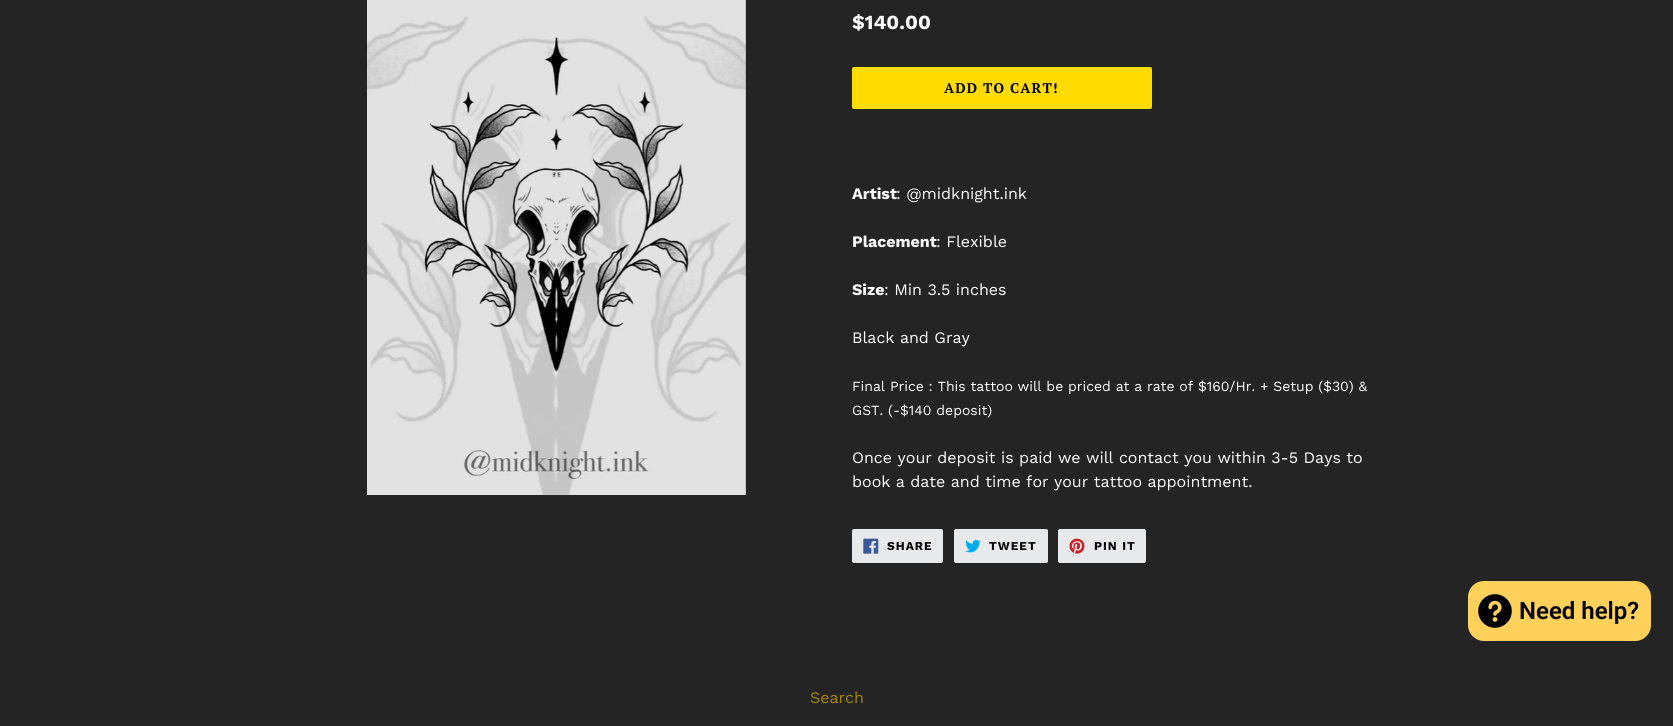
import math
import cairocffi as cairo

surface = cairo.ImageSurface(cairo.FORMAT_RGB24, 1673, 726)
cr = cairo.Context(surface)
options = cairo.FontOptions()
options.set_hint_metrics(cairo.HINT_METRICS_OFF)
options.set_hint_style(cairo.HINT_STYLE_NONE)
cr.set_font_options(options)
cr.set_miter_limit(4)


def use_color(code):
    cr.set_source_rgb(*(v / 255 for v in bytes.fromhex(code[-6:])))


def spaced_text(x, y, s, letter, word):
    cr.move_to(x, y)
    for ch in s:
        cr.show_text(ch)
        cr.rel_move_to(letter + word * (ch == ' '), 0)


def round_rect(x, y, w, h, r):
    cr.new_sub_path()
    for i, (u, v) in enumerate([(x + w - r, y + h - r), (x + r, y + h - r), (x + r, y + r), (x + w - r, y + r)]):
        cr.arc(u, v, r, i * math.pi / 2, (i + 1) * math.pi / 2)
    cr.close_path()


def picture(path, x, y, w, h):
    cr.save()
    cr.set_source_surface(cairo.ImageSurface.create_from_png(path), x, y)
    cr.rectangle(x, y, w, h)
    cr.fill()
    cr.restore()


use_color("#242424")
cr.paint()
picture("img1.png", 367, 0, 379, 495)
cr.select_font_face("Work Sans", cairo.FONT_SLANT_NORMAL, cairo.FONT_WEIGHT_BOLD)
cr.set_font_size(20)
use_color("#ffffff")
cr.move_to(852, 29)
cr.show_text("$140.00")
use_color("#ffdb00")
round_rect(852, 67, 300, 42, 2)
cr.fill()
cr.select_font_face("PT Serif", cairo.FONT_SLANT_NORMAL, cairo.FONT_WEIGHT_BOLD)
cr.set_font_size(14)
use_color("#000000")
spaced_text(944, 93, "ADD TO CART!", 1.1, 0)
cr.select_font_face("Work Sans", cairo.FONT_SLANT_NORMAL, cairo.FONT_WEIGHT_BOLD)
cr.set_font_size(16)
use_color("#ffffff")
cr.move_to(852, 199)
cr.show_text("Artist")
cr.select_font_face("Work Sans")
cr.move_to(896, 199)
cr.show_text(": @midknight.ink")
cr.select_font_face("Work Sans", cairo.FONT_SLANT_NORMAL, cairo.FONT_WEIGHT_BOLD)
cr.move_to(852, 247)
cr.show_text("Placement")
cr.select_font_face("Work Sans")
cr.move_to(936, 247)
cr.show_text(": Flexible")
cr.select_font_face("Work Sans", cairo.FONT_SLANT_NORMAL, cairo.FONT_WEIGHT_BOLD)
cr.move_to(852, 295)
cr.show_text("Size")
cr.select_font_face("Work Sans")
cr.move_to(884, 295)
cr.show_text(": Min 3.5 inches")
cr.move_to(852, 343)
cr.show_text("Black and Gray")
cr.set_font_size(14)
cr.move_to(852, 391)
cr.show_text("Final Price : This tattoo will be priced at a rate of $160/Hr. + Setup ($30) &")
cr.move_to(852, 415)
cr.show_text("GST. (-$140 deposit)")
cr.set_font_size(16)
cr.move_to(852, 463)
cr.show_text("Once your deposit is paid we will contact you within 3-5 Days to")
cr.move_to(852, 487)
cr.show_text("book a date and time for your tattoo appointment.")
use_color("#e8e9eb")
round_rect(852.5, 529.5, 90, 33, 1.5)
cr.fill_preserve()
cr.set_line_width(1)
cr.stroke()
picture("img2.png", 863, 538, 16, 16)
cr.select_font_face("Work Sans", cairo.FONT_SLANT_NORMAL, cairo.FONT_WEIGHT_BOLD)
cr.set_font_size(12)
use_color("#000000")
spaced_text(887, 550, "SHARE", 1, 0)
use_color("#e8e9eb")
round_rect(954.5, 529.5, 93, 33, 1.5)
cr.fill_preserve()
cr.stroke()
picture("img3.png", 965, 539, 16, 14)
use_color("#000000")
spaced_text(989, 550, "TWEET", 1, 0)
use_color("#e8e9eb")
round_rect(1058.5, 529.5, 87, 33, 1.5)
cr.fill_preserve()
cr.stroke()
picture("img4.png", 1069, 538, 16, 16)
use_color("#000000")
spaced_text(1094, 550, "PIN IT", 1, 0)
cr.select_font_face("Work Sans")
cr.set_font_size(16)
use_color("#a48600")
cr.move_to(810, 703)
cr.show_text("Search")
use_color("#ffd05a")
round_rect(1468, 581, 183, 60, 16)
cr.fill()
picture("img5.png", 1478, 594, 34, 34)
cr.select_font_face("Roboto SemiBold")
cr.set_font_size(24)
use_color("#000000")
cr.move_to(1519, 619)
cr.show_text("Need help?")
surface.write_to_png("result.png")
